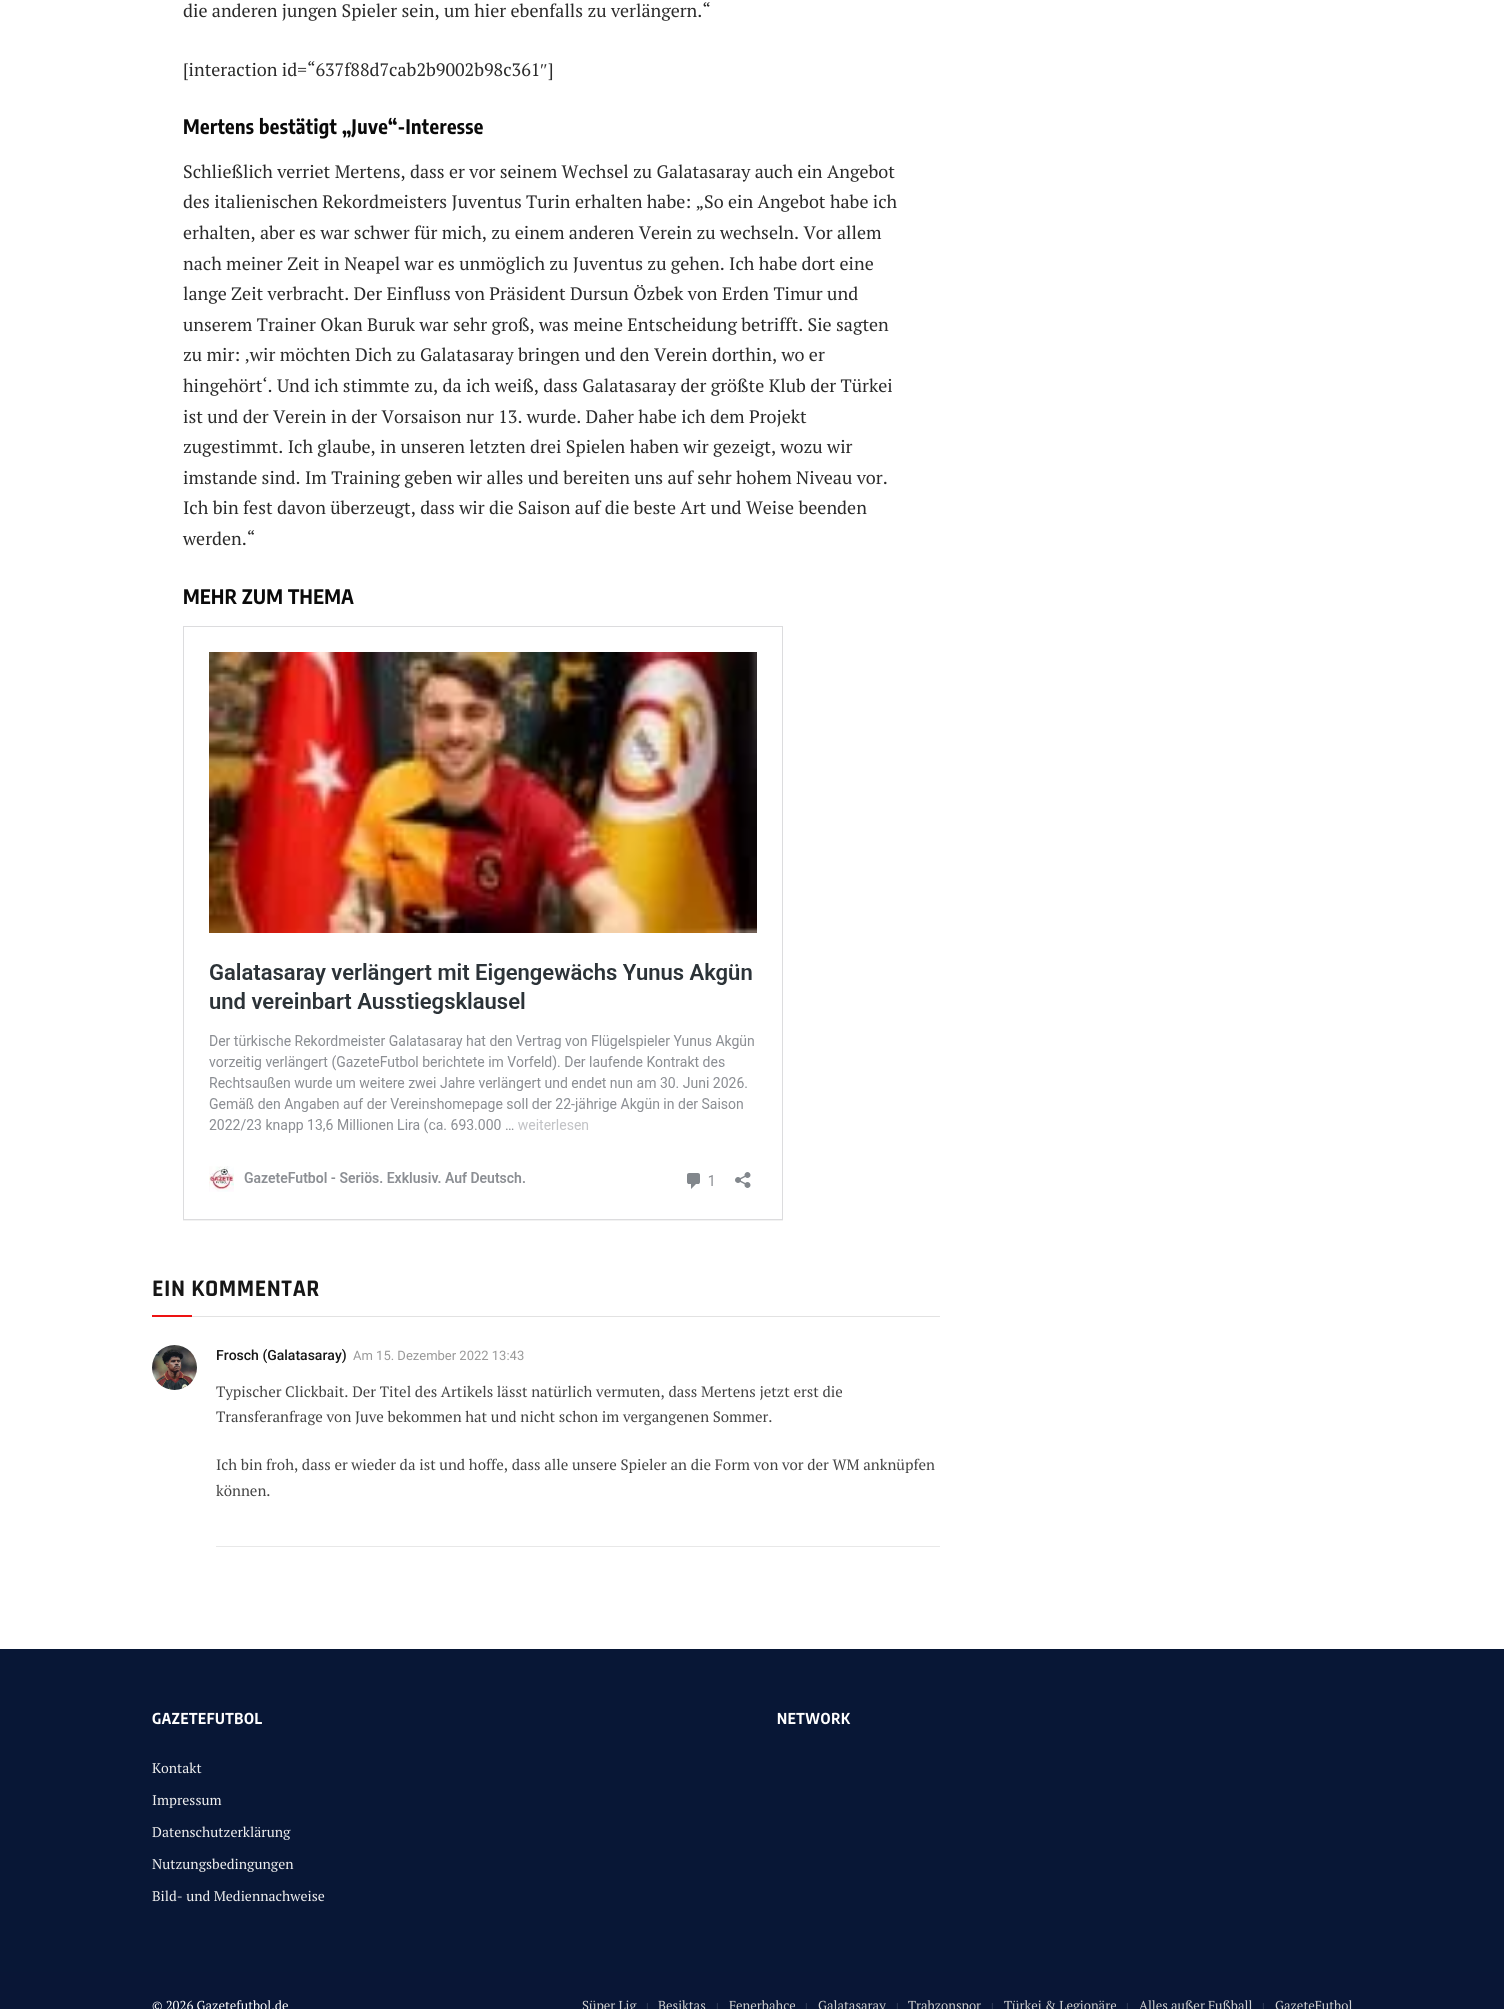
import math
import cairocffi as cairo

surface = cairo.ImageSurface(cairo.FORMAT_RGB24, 1504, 2009)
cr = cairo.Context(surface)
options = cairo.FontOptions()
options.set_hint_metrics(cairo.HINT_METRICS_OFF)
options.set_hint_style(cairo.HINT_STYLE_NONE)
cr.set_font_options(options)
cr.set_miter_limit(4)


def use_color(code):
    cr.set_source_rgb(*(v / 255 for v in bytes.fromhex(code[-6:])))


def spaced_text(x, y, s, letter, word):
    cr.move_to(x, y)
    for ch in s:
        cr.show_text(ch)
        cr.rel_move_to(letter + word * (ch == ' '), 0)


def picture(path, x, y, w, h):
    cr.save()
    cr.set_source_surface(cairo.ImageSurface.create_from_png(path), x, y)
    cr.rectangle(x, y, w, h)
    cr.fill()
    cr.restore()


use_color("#ffffff")
cr.paint()
cr.select_font_face("PT Serif")
cr.set_font_size(18)
use_color("#2b2b2b")
cr.move_to(183, 17)
cr.show_text("die anderen jungen Spieler sein, um hier ebenfalls zu verlängern.“")
cr.move_to(183, 76)
cr.show_text("[interaction id=“637f88d7cab2b9002b98c361")
cr.select_font_face("Liberation Serif")
cr.move_to(540, 76)
cr.show_text("″")
cr.select_font_face("PT Serif")
cr.move_to(548, 76)
cr.show_text("]")
cr.select_font_face("Encode Sans Condensed", cairo.FONT_SLANT_NORMAL, cairo.FONT_WEIGHT_BOLD)
cr.set_font_size(19.9)
use_color("#0a0a0a")
spaced_text(183, 134, "Mertens bestätigt „Juve“-Interesse", 0.4, 0)
cr.select_font_face("PT Serif")
cr.set_font_size(18)
use_color("#2b2b2b")
cr.move_to(183, 178)
cr.show_text("Schließlich verriet Mertens, dass er vor seinem Wechsel zu Galatasaray auch ein Angebot")
cr.move_to(183, 208)
cr.show_text("des italienischen Rekordmeisters Juventus Turin erhalten habe: „So ein Angebot habe ich")
cr.move_to(183, 239)
cr.show_text("erhalten, aber es war schwer für mich, zu einem anderen Verein zu wechseln. Vor allem")
cr.move_to(183, 270)
cr.show_text("nach meiner Zeit in Neapel war es unmöglich zu Juventus zu gehen. Ich habe dort eine")
cr.move_to(183, 300)
cr.show_text("lange Zeit verbracht. Der Einfluss von Präsident Dursun Özbek von Erden Timur und")
cr.move_to(183, 331)
cr.show_text("unserem Trainer Okan Buruk war sehr groß, was meine Entscheidung betrifft. Sie sagten")
cr.move_to(183, 361)
cr.show_text("zu mir: ‚wir möchten Dich zu Galatasaray bringen und den Verein dorthin, wo er")
cr.move_to(183, 392)
cr.show_text("hingehört‘. Und ich stimmte zu, da ich weiß, dass Galatasaray der größte Klub der Türkei")
cr.move_to(183, 423)
cr.show_text("ist und der Verein in der Vorsaison nur 13. wurde. Daher habe ich dem Projekt")
cr.move_to(183, 453)
cr.show_text("zugestimmt. Ich glaube, in unseren letzten drei Spielen haben wir gezeigt, wozu wir")
cr.move_to(183, 484)
cr.show_text("imstande sind. Im Training geben wir alles und bereiten uns auf sehr hohem Niveau vor.")
cr.move_to(183, 514)
cr.show_text("Ich bin fest davon überzeugt, dass wir die Saison auf die beste Art und Weise beenden")
cr.move_to(183, 545)
cr.show_text("werden.“")
cr.select_font_face("Encode Sans Condensed", cairo.FONT_SLANT_NORMAL, cairo.FONT_WEIGHT_BOLD)
cr.set_font_size(19.9)
use_color("#0a0a0a")
spaced_text(183, 604, "MEHR ZUM THEMA", 0.4, 0)
picture("img1.png", 183, 626, 600, 595)
use_color("#e2e2e2")
cr.rectangle(192, 1316, 748, 1)
cr.fill()
cr.select_font_face("Rajdhani", cairo.FONT_SLANT_NORMAL, cairo.FONT_WEIGHT_BOLD)
cr.set_font_size(24)
use_color("#161616")
spaced_text(152, 1296, "EIN KOMMENTAR", 0.5, 0)
use_color("#ed1212")
cr.rectangle(152, 1315, 40, 2)
cr.fill()
picture("img2.png", 152, 1345, 45, 45)
cr.select_font_face("Roboto Medium")
cr.set_font_size(14)
use_color("#161616")
cr.move_to(216, 1360)
cr.show_text("Frosch (Galatasaray)")
cr.select_font_face("Roboto")
cr.set_font_size(13)
use_color("#999999")
cr.move_to(353, 1360)
cr.show_text("Am 15. Dezember 2022 13:43")
use_color("#e8e8e8")
cr.rectangle(216, 1546, 724, 1)
cr.fill()
cr.select_font_face("PT Serif")
cr.set_font_size(15)
use_color("#444444")
cr.move_to(216, 1397)
cr.show_text("Typischer Clickbait. Der Titel des Artikels lässt natürlich vermuten, dass Mertens jetzt erst die")
cr.move_to(216, 1422)
cr.show_text("Transferanfrage von Juve bekommen hat und nicht schon im vergangenen Sommer.")
cr.move_to(216, 1470)
cr.show_text("Ich bin froh, dass er wieder da ist und hoffe, dass alle unsere Spieler an die Form von vor der WM anknüpfen")
cr.move_to(216, 1496)
cr.show_text("können.")
use_color("#081736")
cr.rectangle(0, 1649, 1504, 323)
cr.fill()
cr.select_font_face("Encode Sans Condensed", cairo.FONT_SLANT_NORMAL, cairo.FONT_WEIGHT_BOLD)
use_color("#ffffff")
spaced_text(152, 1724, "GAZETEFUTBOL", 0.6, 0)
cr.select_font_face("PT Serif")
cr.set_font_size(14)
use_color("#f0f0f0")
cr.move_to(152, 1773)
cr.show_text("Kontakt")
cr.move_to(152, 1805)
cr.show_text("Impressum")
cr.move_to(152, 1837)
cr.show_text("Datenschutzerklärung")
cr.move_to(152, 1869)
cr.show_text("Nutzungsbedingungen")
cr.move_to(152, 1901)
cr.show_text("Bild- und Mediennachweise")
cr.select_font_face("Encode Sans Condensed", cairo.FONT_SLANT_NORMAL, cairo.FONT_WEIGHT_BOLD)
cr.set_font_size(15)
use_color("#ffffff")
spaced_text(777, 1724, "NETWORK", 0.6, 0)
use_color("#091636")
cr.rectangle(0, 1972, 1504, 37)
cr.fill()
cr.select_font_face("PT Serif")
cr.set_font_size(13)
use_color("#ffffff")
cr.move_to(152, 2010)
cr.show_text("© 2026 Gazetefutbol.de")
use_color("#d1d1d1")
cr.move_to(582, 2010)
cr.show_text("Süper Lig")
cr.set_font_size(10)
use_color("#535c72")
cr.move_to(646, 2010)
cr.show_text("|")
cr.set_font_size(13)
use_color("#d1d1d1")
cr.move_to(658, 2010)
cr.show_text("Besiktas")
cr.set_font_size(10)
use_color("#535c72")
cr.move_to(716, 2010)
cr.show_text("|")
cr.set_font_size(13)
use_color("#d1d1d1")
cr.move_to(729, 2010)
cr.show_text("Fenerbahce")
cr.set_font_size(10)
use_color("#535c72")
cr.move_to(805, 2010)
cr.show_text("|")
cr.set_font_size(13)
use_color("#d1d1d1")
cr.move_to(818, 2010)
cr.show_text("Galatasaray")
cr.set_font_size(10)
use_color("#535c72")
cr.move_to(896, 2010)
cr.show_text("|")
cr.set_font_size(13)
use_color("#d1d1d1")
cr.move_to(908, 2010)
cr.show_text("Trabzonspor")
cr.set_font_size(10)
use_color("#535c72")
cr.move_to(991, 2010)
cr.show_text("|")
cr.set_font_size(13)
use_color("#d1d1d1")
cr.move_to(1004, 2010)
cr.show_text("Türkei & Legionäre")
cr.set_font_size(10)
use_color("#535c72")
cr.move_to(1126, 2010)
cr.show_text("|")
cr.set_font_size(13)
use_color("#d1d1d1")
cr.move_to(1139, 2010)
cr.show_text("Alles außer Fußball")
cr.set_font_size(10)
use_color("#535c72")
cr.move_to(1262, 2010)
cr.show_text("|")
cr.set_font_size(13)
use_color("#d1d1d1")
cr.move_to(1275, 2010)
cr.show_text("GazeteFutbol")
surface.write_to_png("result.png")
